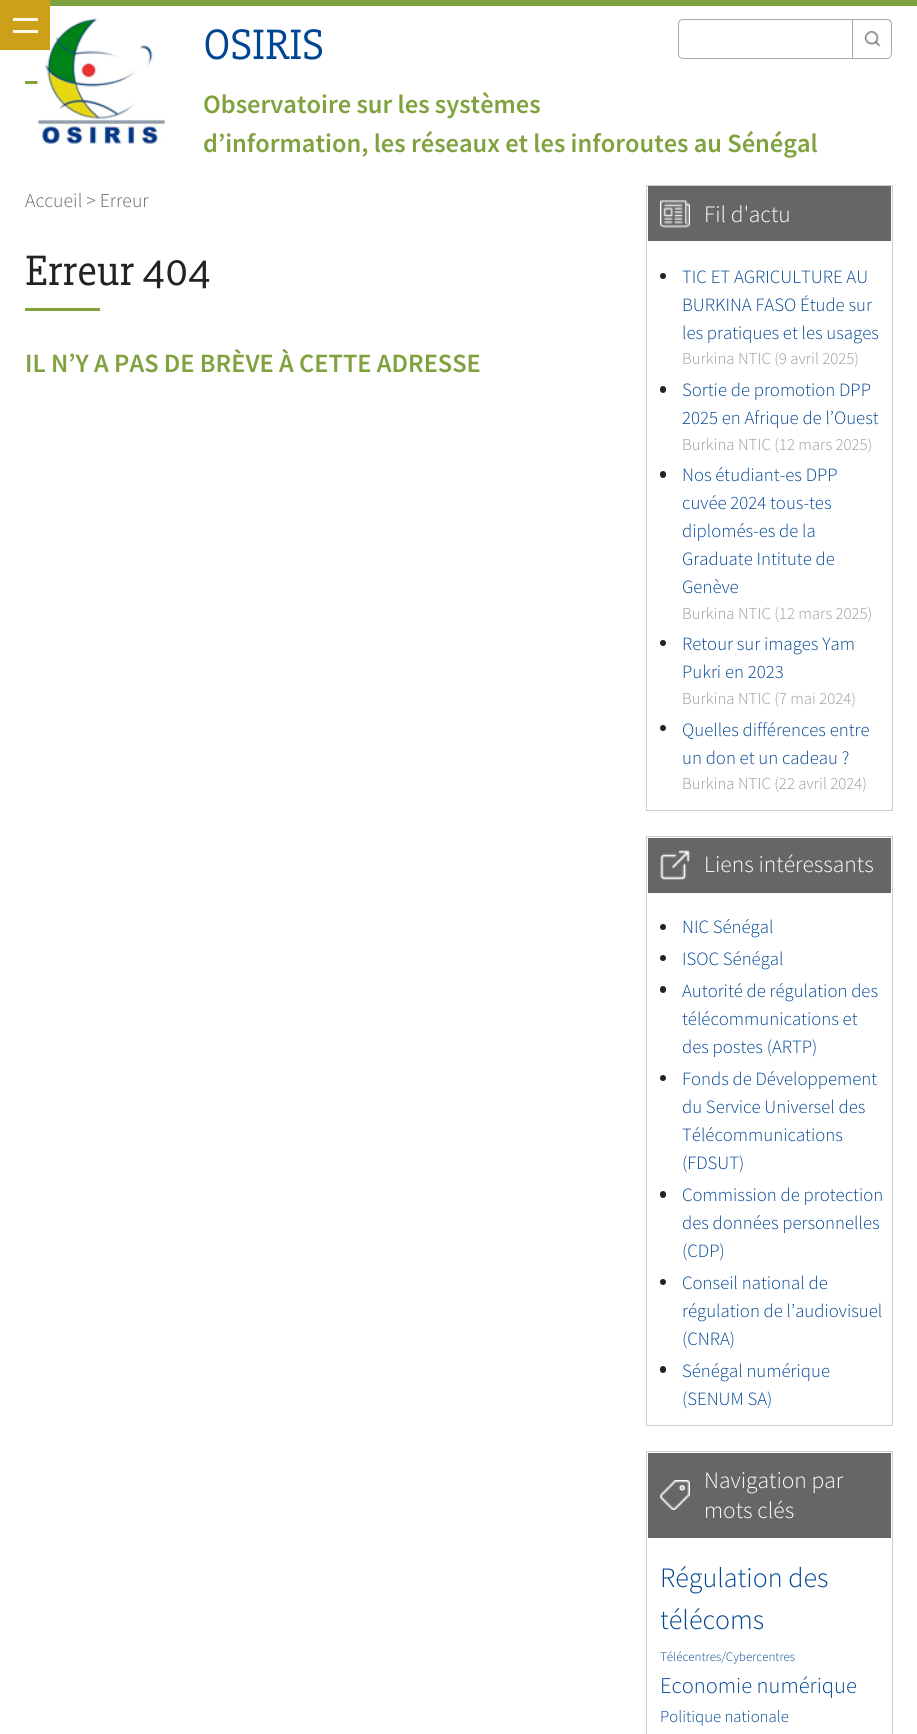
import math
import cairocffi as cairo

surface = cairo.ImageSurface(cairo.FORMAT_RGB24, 917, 1734)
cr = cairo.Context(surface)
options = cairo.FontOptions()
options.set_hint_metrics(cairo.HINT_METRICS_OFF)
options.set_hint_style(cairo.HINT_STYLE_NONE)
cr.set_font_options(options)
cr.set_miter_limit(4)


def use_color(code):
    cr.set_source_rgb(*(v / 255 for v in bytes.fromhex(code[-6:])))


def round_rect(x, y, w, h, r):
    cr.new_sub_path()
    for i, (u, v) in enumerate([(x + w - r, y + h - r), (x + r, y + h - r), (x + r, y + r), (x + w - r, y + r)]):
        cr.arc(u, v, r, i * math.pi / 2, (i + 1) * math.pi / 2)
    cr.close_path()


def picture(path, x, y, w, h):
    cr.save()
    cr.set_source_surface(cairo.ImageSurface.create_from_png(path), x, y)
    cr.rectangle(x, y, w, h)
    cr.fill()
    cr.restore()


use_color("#ffffff")
cr.paint()
use_color("#7fa23e")
cr.rectangle(50, 0, 867, 6)
cr.fill()
cr.rectangle(25, 81, 13, 3)
cr.fill()
picture("img1.png", 37, 18, 128, 126)
use_color("#cda01a")
cr.rectangle(0, 0, 50, 50)
cr.fill()
use_color("#faf6e8")
cr.rectangle(13, 18, 25, 3)
cr.fill()
cr.rectangle(13, 30, 25, 3)
cr.fill()
cr.select_font_face("Slabo 27px")
cr.set_font_size(44)
use_color("#004592")
cr.move_to(203, 59)
cr.show_text("OSIRIS")
cr.new_path()
cr.move_to(683, 19.5)
cr.line_to(852.5, 19.5)
cr.line_to(852.5, 58.5)
cr.line_to(683, 58.5)
cr.curve_to(680.5, 58.5, 678.5, 56.5, 678.5, 54)
cr.line_to(678.5, 24)
cr.curve_to(678.5, 21.5, 680.5, 19.5, 683, 19.5)
cr.close_path()
use_color("#aaaaaa")
cr.set_line_width(1)
cr.stroke()
picture("img2.png", 864, 31, 17, 16)
cr.set_fill_rule(cairo.FILL_RULE_EVEN_ODD)
cr.new_path()
cr.move_to(852, 19)
cr.line_to(887, 19)
cr.curve_to(890, 19, 892, 21, 892, 24)
cr.line_to(892, 53)
cr.curve_to(892, 56, 890, 59, 887, 59)
cr.line_to(852, 59)
cr.close_path()
cr.move_to(852, 20)
cr.line_to(887, 20)
cr.curve_to(889, 20, 891, 22, 891, 24)
cr.line_to(891, 53)
cr.curve_to(891, 56, 889, 58, 887, 58)
cr.line_to(852, 58)
cr.close_path()
cr.fill()
cr.select_font_face("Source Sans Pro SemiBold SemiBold")
cr.set_font_size(26.4)
use_color("#7fa23e")
cr.move_to(203, 113)
cr.show_text("Observatoire sur les systèmes")
cr.move_to(203, 152)
cr.show_text("d’information, les réseaux et les inforoutes au Sénégal")
cr.select_font_face("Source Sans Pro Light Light")
cr.set_font_size(19.75)
use_color("#666666")
cr.move_to(25, 207)
cr.show_text("Accueil > Erreur")
cr.select_font_face("Slabo 27px")
cr.set_font_size(44)
use_color("#222222")
cr.move_to(25, 285)
cr.show_text("Erreur 404")
use_color("#7fa23e")
cr.rectangle(25, 308, 75, 3)
cr.fill()
cr.select_font_face("Source Sans Pro SemiBold SemiBold")
cr.set_font_size(26.4)
cr.move_to(25, 372)
cr.show_text("IL N’Y A PAS DE BRÈVE À CETTE ADRESSE")
cr.rectangle(646.5, 185.5, 246, 625)
use_color("#cccccc")
cr.stroke()
use_color("#666666")
cr.rectangle(648, 186, 243, 55)
cr.fill()
picture("img3.png", 660, 199, 30, 29)
cr.select_font_face("Source Sans Pro Light Light")
cr.set_font_size(23.5)
use_color("#ffffff")
cr.move_to(704, 222)
cr.show_text("Fil d'actu")
use_color("#222222")
cr.new_path()
cr.arc(663, 276, 3, 0, 2 * math.pi)
cr.fill()
cr.set_font_size(18.75)
use_color("#004592")
cr.move_to(682, 283)
cr.show_text("TIC ET AGRICULTURE AU")
cr.move_to(682, 311)
cr.show_text("BURKINA FASO Étude sur")
cr.move_to(682, 339)
cr.show_text("les pratiques et les usages")
cr.set_font_size(16.75)
use_color("#999999")
cr.move_to(682, 364)
cr.show_text("Burkina NTIC (9 avril 2025)")
use_color("#222222")
round_rect(660, 386, 6, 7, 3)
cr.fill()
cr.set_font_size(18.75)
use_color("#004592")
cr.move_to(682, 396)
cr.show_text("Sortie de promotion DPP")
cr.move_to(682, 424)
cr.show_text("2025 en Afrique de l’Ouest")
cr.set_font_size(16.75)
use_color("#999999")
cr.move_to(682, 450)
cr.show_text("Burkina NTIC (12 mars 2025)")
use_color("#222222")
round_rect(660, 471, 6, 7, 3)
cr.fill()
cr.set_font_size(18.75)
use_color("#004592")
cr.move_to(682, 481)
cr.show_text("Nos étudiant-es DPP")
cr.move_to(682, 509)
cr.show_text("cuvée 2024 tous-tes")
cr.move_to(682, 537)
cr.show_text("diplomés-es de la")
cr.move_to(682, 565)
cr.show_text("Graduate Intitute de")
cr.move_to(682, 593)
cr.show_text("Genève")
cr.set_font_size(16.75)
use_color("#999999")
cr.move_to(682, 619)
cr.show_text("Burkina NTIC (12 mars 2025)")
use_color("#222222")
cr.new_path()
cr.arc(663, 643, 3, 0, 2 * math.pi)
cr.fill()
cr.set_font_size(18.75)
use_color("#004592")
cr.move_to(682, 650)
cr.show_text("Retour sur images Yam")
cr.move_to(682, 678)
cr.show_text("Pukri en 2023")
cr.set_font_size(16.75)
use_color("#999999")
cr.move_to(682, 704)
cr.show_text("Burkina NTIC (7 mai 2024)")
use_color("#222222")
cr.new_path()
cr.arc(663, 728, 3, 0, 2 * math.pi)
cr.fill()
cr.set_font_size(18.75)
use_color("#004592")
cr.move_to(682, 736)
cr.show_text("Quelles différences entre")
cr.move_to(682, 764)
cr.show_text("un don et un cadeau ?")
cr.set_font_size(16.75)
use_color("#999999")
cr.move_to(682, 789)
cr.show_text("Burkina NTIC (22 avril 2024)")
cr.rectangle(646.5, 836.5, 246, 589)
use_color("#cccccc")
cr.stroke()
use_color("#666666")
cr.rectangle(648, 838, 243, 55)
cr.fill()
picture("img4.png", 660, 850, 30, 30)
cr.set_font_size(23.5)
use_color("#ffffff")
cr.move_to(704, 872)
cr.show_text("Liens intéressants")
use_color("#222222")
cr.new_path()
cr.arc(663, 927, 3, 0, 2 * math.pi)
cr.fill()
cr.set_font_size(18.75)
use_color("#004592")
cr.move_to(682, 933)
cr.show_text("NIC Sénégal")
use_color("#222222")
cr.new_path()
cr.arc(663, 958, 3, 0, 2 * math.pi)
cr.fill()
use_color("#004592")
cr.move_to(682, 965)
cr.show_text("ISOC Sénégal")
use_color("#222222")
round_rect(660, 986, 6, 7, 3)
cr.fill()
use_color("#004592")
cr.move_to(682, 997)
cr.show_text("Autorité de régulation des")
cr.move_to(682, 1025)
cr.show_text("télécommunications et")
cr.move_to(682, 1053)
cr.show_text("des postes (ARTP)")
use_color("#222222")
cr.new_path()
cr.arc(663, 1078, 3, 0, 2 * math.pi)
cr.fill()
use_color("#004592")
cr.move_to(682, 1085)
cr.show_text("Fonds de Développement")
cr.move_to(682, 1113)
cr.show_text("du Service Universel des")
cr.move_to(682, 1141)
cr.show_text("Télécommunications")
cr.move_to(682, 1169)
cr.show_text("(FDSUT)")
use_color("#222222")
round_rect(660, 1191, 6, 7, 3)
cr.fill()
use_color("#004592")
cr.move_to(682, 1201)
cr.show_text("Commission de protection")
cr.move_to(682, 1229)
cr.show_text("des données personnelles")
cr.move_to(682, 1257)
cr.show_text("(CDP)")
use_color("#222222")
cr.new_path()
cr.arc(663, 1282, 3, 0, 2 * math.pi)
cr.fill()
use_color("#004592")
cr.move_to(682, 1289)
cr.show_text("Conseil national de")
cr.move_to(682, 1317)
cr.show_text("régulation de l’audiovisuel")
cr.move_to(682, 1345)
cr.show_text("(CNRA)")
use_color("#222222")
round_rect(660, 1366, 6, 7, 3)
cr.fill()
use_color("#004592")
cr.move_to(682, 1377)
cr.show_text("Sénégal numérique")
cr.move_to(682, 1405)
cr.show_text("(SENUM SA)")
cr.rectangle(646.5, 1451.5, 246, 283)
use_color("#cccccc")
cr.stroke()
use_color("#666666")
cr.rectangle(648, 1453, 243, 85)
cr.fill()
picture("img5.png", 660, 1480, 30, 30)
cr.set_font_size(23.5)
use_color("#ffffff")
cr.move_to(704, 1488)
cr.show_text("Navigation par")
cr.move_to(704, 1518)
cr.show_text("mots clés")
cr.set_font_size(28)
use_color("#004592")
cr.move_to(660, 1587)
cr.show_text("Régulation des")
cr.move_to(660, 1629)
cr.show_text("télécoms")
cr.set_font_size(13)
cr.move_to(660, 1661)
cr.show_text("Télécentres/Cybercentres")
cr.set_font_size(22.5)
cr.move_to(660, 1693)
cr.show_text("Economie numérique")
cr.set_font_size(16.75)
cr.move_to(660, 1722)
cr.show_text("Politique nationale")
surface.write_to_png("result.png")
